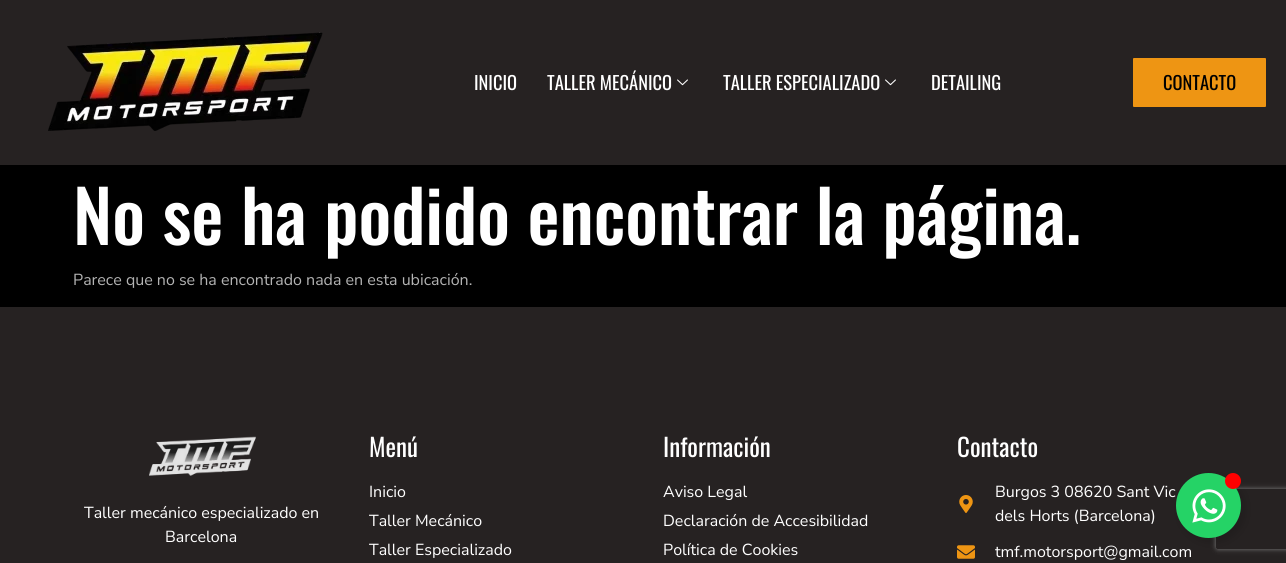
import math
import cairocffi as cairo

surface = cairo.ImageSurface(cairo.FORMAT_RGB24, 1286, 563)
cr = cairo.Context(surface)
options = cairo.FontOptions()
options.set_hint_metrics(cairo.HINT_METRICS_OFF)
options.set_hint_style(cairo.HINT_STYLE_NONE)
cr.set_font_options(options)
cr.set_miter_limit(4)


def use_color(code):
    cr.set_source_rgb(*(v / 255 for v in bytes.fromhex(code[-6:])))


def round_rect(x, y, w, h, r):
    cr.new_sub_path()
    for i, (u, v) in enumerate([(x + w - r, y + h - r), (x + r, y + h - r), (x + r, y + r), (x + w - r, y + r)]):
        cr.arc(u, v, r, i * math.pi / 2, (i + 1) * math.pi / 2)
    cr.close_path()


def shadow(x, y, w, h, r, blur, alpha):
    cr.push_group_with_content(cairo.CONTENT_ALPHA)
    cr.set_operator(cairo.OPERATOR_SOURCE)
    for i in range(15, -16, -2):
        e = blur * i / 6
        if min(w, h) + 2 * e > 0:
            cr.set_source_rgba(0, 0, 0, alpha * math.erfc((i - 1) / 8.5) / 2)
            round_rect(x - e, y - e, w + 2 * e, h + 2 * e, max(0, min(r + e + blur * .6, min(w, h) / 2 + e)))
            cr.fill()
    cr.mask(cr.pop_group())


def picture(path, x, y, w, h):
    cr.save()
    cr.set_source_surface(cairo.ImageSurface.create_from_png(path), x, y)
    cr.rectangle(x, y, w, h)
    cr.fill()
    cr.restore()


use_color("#000000")
cr.paint()
use_color("#262222")
cr.rectangle(0, 0, 1286, 165)
cr.fill()
picture("img1.png", 48, 32, 275, 99)
cr.select_font_face("Oswald")
cr.set_font_size(18.5)
use_color("#ffffff")
cr.move_to(474, 90)
cr.show_text("INICIO")
cr.move_to(547, 90)
cr.show_text("TALLER MECÁNICO")
picture("img2.png", 677, 79, 11, 7)
cr.move_to(723, 90)
cr.show_text("TALLER ESPECIALIZADO")
picture("img2.png", 885, 79, 11, 7)
cr.move_to(931, 90)
cr.show_text("DETAILING")
use_color("#ee9513")
round_rect(1133, 58, 133, 49, 1)
cr.fill()
use_color("#000000")
cr.move_to(1163, 90)
cr.show_text("CONTACTO")
cr.select_font_face("Oswald Medium")
cr.set_font_size(72)
use_color("#ffffff")
cr.move_to(73, 245)
cr.show_text("No se ha podido encontrar la página.")
cr.select_font_face("Nunito Sans")
cr.set_font_size(16)
use_color("#b4b4b4")
cr.move_to(73, 285)
cr.show_text("Parece que no se ha encontrado nada en esta ubicación.")
use_color("#262222")
cr.rectangle(0, 307, 1286, 256)
cr.fill()
picture("img3.png", 149, 436, 108, 40)
use_color("#ffffff")
cr.move_to(84, 518)
cr.show_text("Taller mecánico especializado en")
cr.move_to(165, 542)
cr.show_text("Barcelona")
cr.select_font_face("Oswald")
cr.set_font_size(25)
cr.move_to(369, 457)
cr.show_text("Menú")
cr.select_font_face("Nunito Sans")
cr.set_font_size(16)
cr.move_to(369, 497)
cr.show_text("Inicio")
cr.move_to(369, 526)
cr.show_text("Taller Mecánico")
cr.move_to(369, 555)
cr.show_text("Taller Especializado")
cr.select_font_face("Oswald")
cr.set_font_size(25)
cr.move_to(663, 457)
cr.show_text("Información")
cr.select_font_face("Nunito Sans")
cr.set_font_size(16)
cr.move_to(663, 497)
cr.show_text("Aviso Legal")
cr.move_to(663, 526)
cr.show_text("Declaración de Accesibilidad")
cr.move_to(663, 555)
cr.show_text("Política de Cookies")
cr.select_font_face("Oswald")
cr.set_font_size(25)
cr.move_to(957, 457)
cr.show_text("Contacto")
picture("img4.png", 959, 495, 14, 18)
cr.select_font_face("Nunito Sans")
cr.set_font_size(16)
cr.move_to(995, 497)
cr.show_text("Burgos 3 08620 Sant Vic")
cr.move_to(995, 521)
cr.show_text("dels Horts (Barcelona)")
picture("img5.png", 957, 545, 18, 14)
cr.move_to(995, 557)
cr.show_text("tmf.motorsport@gmail.com")
use_color("#000000")
shadow(1180, 477, 65, 65, 32.5, 5, 0.15)
cr.save()
cr.set_fill_rule(cairo.FILL_RULE_EVEN_ODD)
cr.new_path()
cr.move_to(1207, 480)
cr.line_to(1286, 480)
cr.line_to(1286, 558)
cr.line_to(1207, 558)
cr.close_path()
cr.move_to(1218, 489)
cr.line_to(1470, 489)
cr.curve_to(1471, 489, 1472, 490, 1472, 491)
cr.line_to(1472, 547)
cr.curve_to(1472, 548, 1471, 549, 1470, 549)
cr.line_to(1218, 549)
cr.curve_to(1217, 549, 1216, 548, 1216, 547)
cr.line_to(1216, 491)
cr.curve_to(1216, 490, 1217, 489, 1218, 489)
cr.close_path()
cr.clip()
use_color("#808080")
shadow(1216, 489, 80, 60, 2, 2.5, 1)
cr.restore()
use_color("#25d366")
cr.arc(1208.5, 505.5, 32.5, 0, 2 * math.pi)
cr.fill()
use_color("#ff0000")
cr.arc(1233, 481, 8, 0, 2 * math.pi)
cr.fill()
picture("img6.png", 1192, 489, 34, 34)
surface.write_to_png("result.png")
